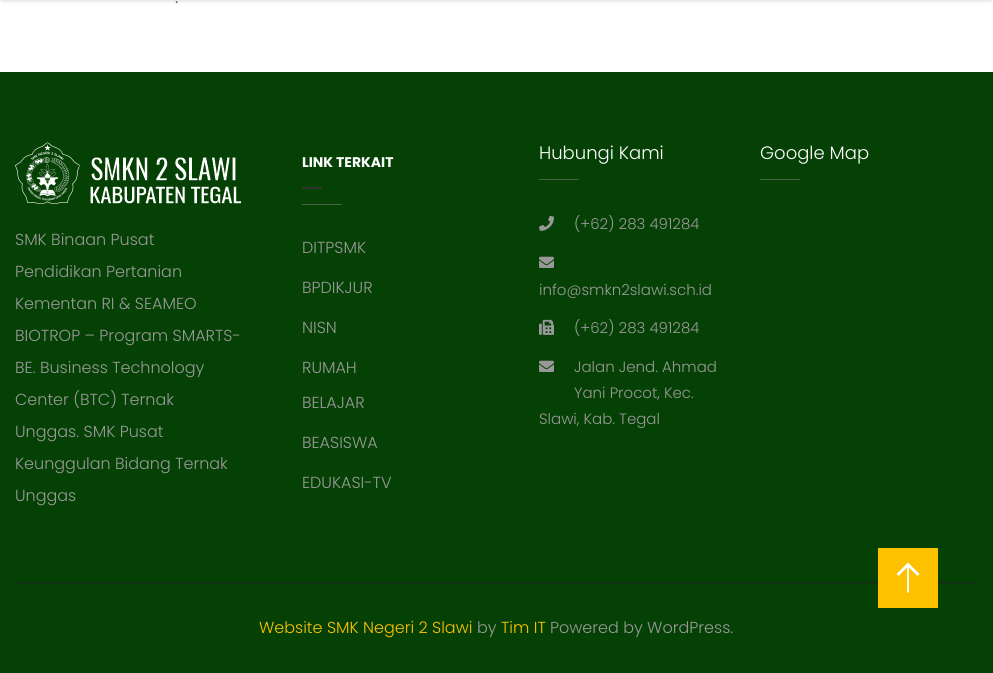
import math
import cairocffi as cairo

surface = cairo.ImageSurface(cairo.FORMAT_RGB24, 993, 673)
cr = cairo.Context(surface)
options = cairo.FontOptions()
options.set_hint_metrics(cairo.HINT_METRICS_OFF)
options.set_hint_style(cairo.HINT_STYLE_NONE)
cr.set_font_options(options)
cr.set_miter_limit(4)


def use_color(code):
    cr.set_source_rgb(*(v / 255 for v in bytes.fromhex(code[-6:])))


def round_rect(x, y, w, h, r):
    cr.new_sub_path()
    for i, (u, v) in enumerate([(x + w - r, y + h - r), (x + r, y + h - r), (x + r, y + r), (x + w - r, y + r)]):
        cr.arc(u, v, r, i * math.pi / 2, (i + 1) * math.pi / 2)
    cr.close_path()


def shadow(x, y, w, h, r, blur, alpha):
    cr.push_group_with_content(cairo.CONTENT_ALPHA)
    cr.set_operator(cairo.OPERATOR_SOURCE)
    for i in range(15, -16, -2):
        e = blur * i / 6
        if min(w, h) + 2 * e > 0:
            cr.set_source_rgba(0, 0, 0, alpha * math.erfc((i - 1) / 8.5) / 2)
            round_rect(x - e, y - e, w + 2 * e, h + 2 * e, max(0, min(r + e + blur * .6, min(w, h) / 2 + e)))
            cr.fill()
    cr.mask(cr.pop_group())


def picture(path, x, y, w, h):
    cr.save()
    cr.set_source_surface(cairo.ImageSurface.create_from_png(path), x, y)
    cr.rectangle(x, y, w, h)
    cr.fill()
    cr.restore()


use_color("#ffffff")
cr.paint()
use_color("#2a2a2a")
shadow(2, -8, 989, 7, 0, 2.5, 0.4)
cr.select_font_face("Poppins")
cr.set_font_size(16)
use_color("#666666")
cr.move_to(175, 3)
cr.show_text(".")
use_color("#054104")
cr.rectangle(0, 72, 993, 601)
cr.fill()
cr.select_font_face("Poppins Light")
cr.set_font_size(18)
use_color("#ffffff")
cr.move_to(539, 159)
cr.show_text("Hubungi Kami")
use_color("#48664b")
cr.rectangle(539, 179, 40, 1)
cr.fill()
picture("img1.png", 539, 215, 15, 16)
cr.set_font_size(15)
use_color("#999999")
cr.move_to(574, 229)
cr.show_text("(+62) 283 491284")
picture("img2.png", 539, 256, 15, 12)
cr.move_to(539, 295)
cr.show_text("info@smkn2slawi.sch.id")
picture("img3.png", 539, 319, 15, 16)
cr.move_to(574, 333)
cr.show_text("(+62) 283 491284")
picture("img2.png", 539, 360, 15, 12)
cr.move_to(574, 372)
cr.show_text("Jalan Jend. Ahmad")
cr.move_to(574, 398)
cr.show_text("Yani Procot, Kec.")
cr.move_to(539, 424)
cr.show_text("Slawi, Kab. Tegal")
cr.set_font_size(18)
use_color("#ffffff")
cr.move_to(760, 159)
cr.show_text("Google Map")
use_color("#48664b")
cr.rectangle(760, 179, 40, 1)
cr.fill()
picture("img4.png", 15, 142, 226, 62)
cr.set_font_size(16)
use_color("#999999")
cr.move_to(15, 245)
cr.show_text("SMK Binaan Pusat")
cr.move_to(15, 277)
cr.show_text("Pendidikan Pertanian")
cr.move_to(15, 309)
cr.show_text("Kementan RI & SEAMEO")
cr.move_to(15, 341)
cr.show_text("BIOTROP – Program SMARTS-")
cr.move_to(15, 373)
cr.show_text("BE. Business Technology")
cr.move_to(15, 405)
cr.show_text("Center (BTC) Ternak")
cr.move_to(15, 437)
cr.show_text("Unggas. SMK Pusat")
cr.move_to(15, 469)
cr.show_text("Keunggulan Bidang Ternak")
cr.move_to(15, 501)
cr.show_text("Unggas")
cr.select_font_face("Poppins", cairo.FONT_SLANT_NORMAL, cairo.FONT_WEIGHT_BOLD)
cr.set_font_size(14)
use_color("#ffffff")
cr.move_to(302, 167)
cr.show_text("LINK TERKAIT")
use_color("#333333")
cr.rectangle(302, 187, 20, 2)
cr.fill()
use_color("#48664b")
cr.rectangle(302, 204, 40, 1)
cr.fill()
cr.select_font_face("Poppins Light")
cr.set_font_size(16)
use_color("#999999")
cr.move_to(302, 253)
cr.show_text("DITPSMK")
cr.move_to(302, 293)
cr.show_text("BPDIKJUR")
cr.move_to(302, 333)
cr.show_text("NISN")
cr.move_to(302, 373)
cr.show_text("RUMAH")
cr.move_to(302, 408)
cr.show_text("BELAJAR")
cr.move_to(302, 448)
cr.show_text("BEASISWA")
cr.move_to(302, 488)
cr.show_text("EDUKASI-TV")
use_color("#222222")
cr.rectangle(15, 582, 963, 1)
cr.fill()
use_color("#fec100")
cr.move_to(259, 633)
cr.show_text("Website SMK Negeri 2 Slawi")
use_color("#999999")
cr.move_to(477, 633)
cr.show_text("by")
use_color("#fec100")
cr.move_to(501, 633)
cr.show_text("Tim IT")
use_color("#999999")
cr.move_to(550, 633)
cr.show_text("Powered by WordPress.")
use_color("#fec100")
cr.rectangle(878, 548, 60, 60)
cr.fill()
use_color("#ffffff")
cr.new_path()
cr.move_to(908, 562.5)
cr.line_to(896.5, 574)
cr.line_to(898.5, 576)
cr.line_to(907, 567.5)
cr.line_to(907, 592.5)
cr.line_to(909, 592.5)
cr.line_to(909, 567.5)
cr.line_to(917.5, 576)
cr.line_to(919.5, 574)
cr.close_path()
cr.fill()
surface.write_to_png("result.png")
